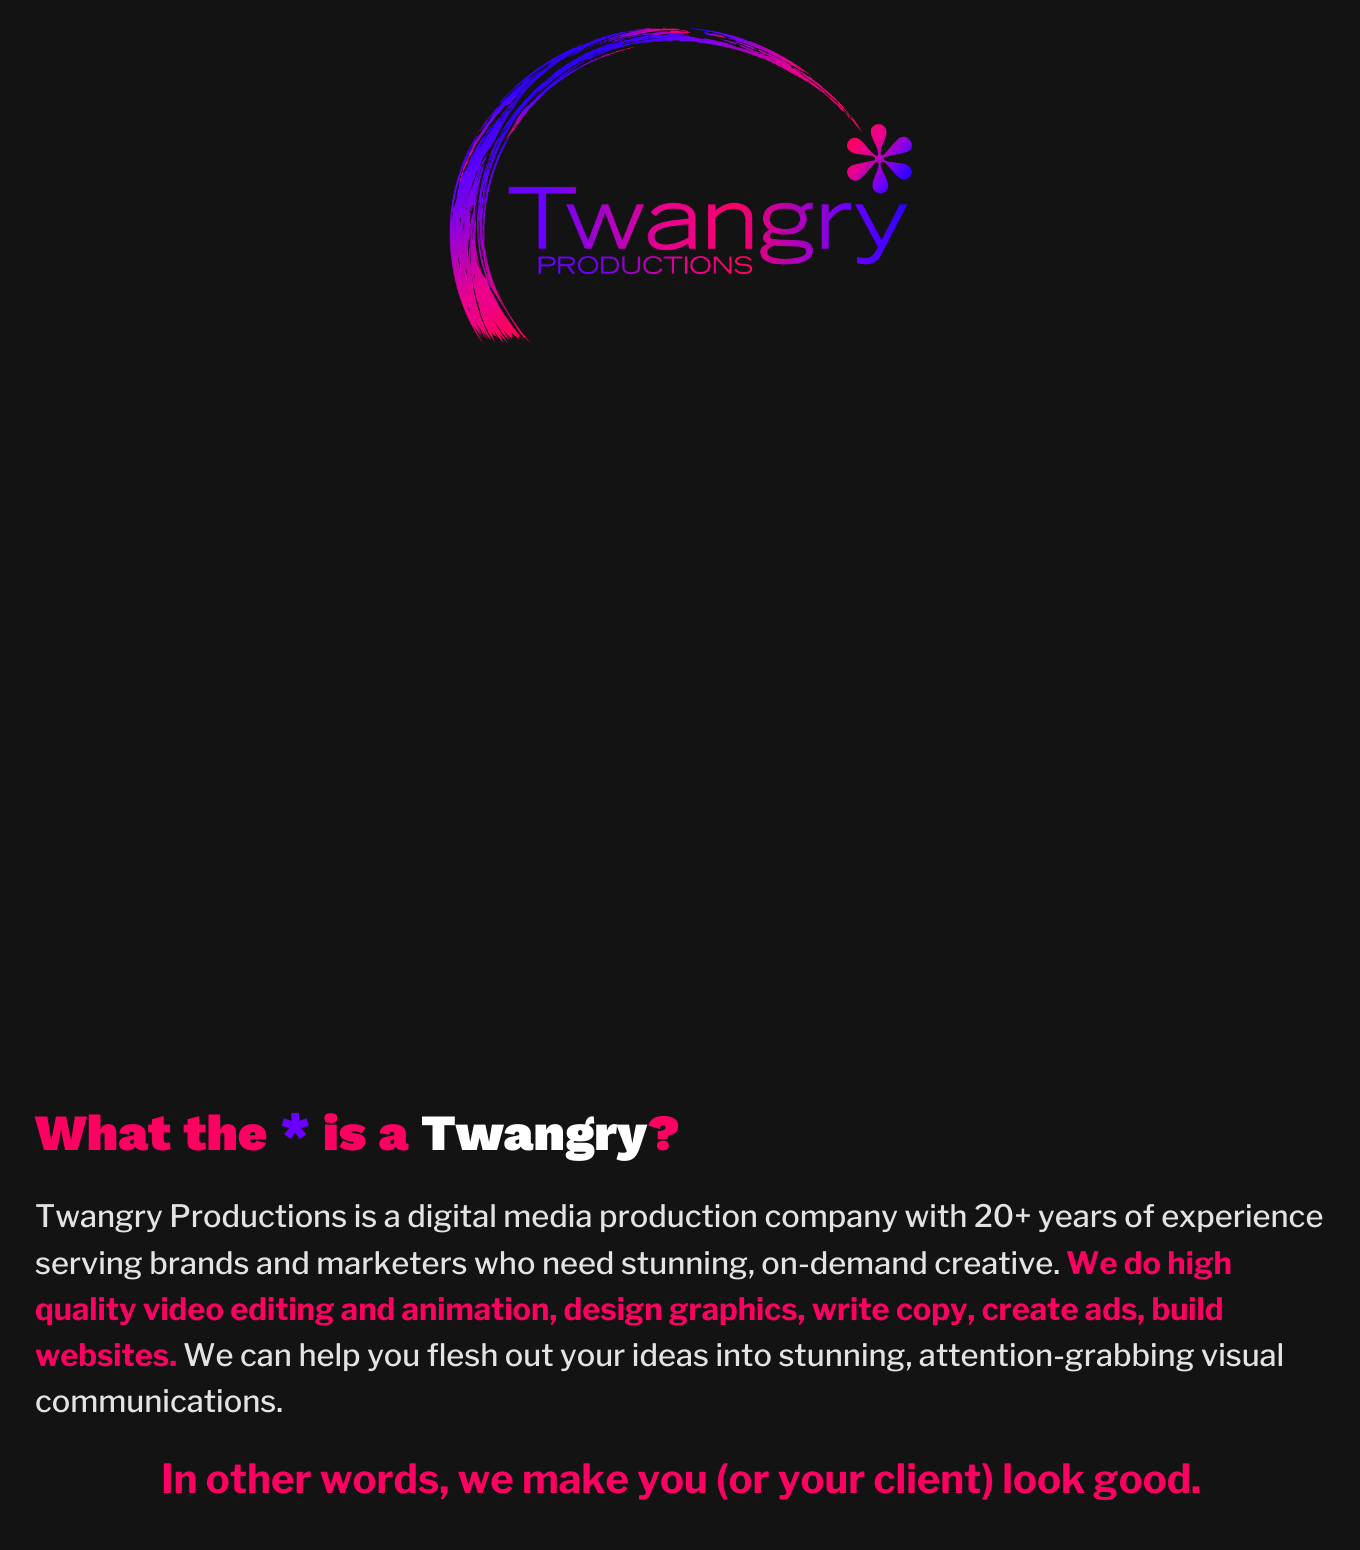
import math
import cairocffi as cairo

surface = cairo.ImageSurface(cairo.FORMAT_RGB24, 1360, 1550)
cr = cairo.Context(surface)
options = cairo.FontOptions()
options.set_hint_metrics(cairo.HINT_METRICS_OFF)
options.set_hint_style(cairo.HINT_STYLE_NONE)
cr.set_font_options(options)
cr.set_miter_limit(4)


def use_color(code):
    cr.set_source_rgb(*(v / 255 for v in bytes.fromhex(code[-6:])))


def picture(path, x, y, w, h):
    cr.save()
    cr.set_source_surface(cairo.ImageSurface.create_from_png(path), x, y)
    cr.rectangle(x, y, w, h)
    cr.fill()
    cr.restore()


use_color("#131313")
cr.paint()
picture("img1.png", 449, 28, 463, 315)
cr.select_font_face("Work Sans Black")
cr.set_font_size(50.75)
use_color("#ff0062")
cr.move_to(35, 1150)
cr.show_text("What the")
use_color("#6a00ff")
cr.move_to(280, 1150)
cr.show_text("*")
use_color("#ff0062")
cr.move_to(323, 1150)
cr.show_text("is a")
use_color("#ffffff")
cr.move_to(421, 1150)
cr.show_text("Twangry")
use_color("#ff0062")
cr.move_to(647, 1150)
cr.show_text("?")
cr.select_font_face("Libre Franklin Medium")
cr.set_font_size(30.8)
use_color("#e3e3e3")
cr.move_to(35, 1227)
cr.show_text("Twangry Productions is a digital media production company with 20+ years of experience")
cr.move_to(35, 1274)
cr.show_text("serving brands and marketers who need stunning, on-demand creative.")
cr.select_font_face("Libre Franklin", cairo.FONT_SLANT_NORMAL, cairo.FONT_WEIGHT_BOLD)
use_color("#ff0062")
cr.move_to(1066, 1274)
cr.show_text("We do high")
cr.move_to(35, 1320)
cr.show_text("quality video editing and animation, design graphics, write copy, create ads, build")
cr.move_to(35, 1366)
cr.show_text("websites.")
cr.select_font_face("Libre Franklin Medium")
use_color("#e3e3e3")
cr.move_to(183, 1366)
cr.show_text("We can help you flesh out your ideas into stunning, attention-grabbing visual")
cr.move_to(35, 1412)
cr.show_text("communications.")
cr.select_font_face("Libre Franklin", cairo.FONT_SLANT_NORMAL, cairo.FONT_WEIGHT_BOLD)
cr.set_font_size(40.05)
use_color("#ff0062")
cr.move_to(161, 1493)
cr.show_text("In other words, we make you (or your client) look good.")
surface.write_to_png("result.png")
